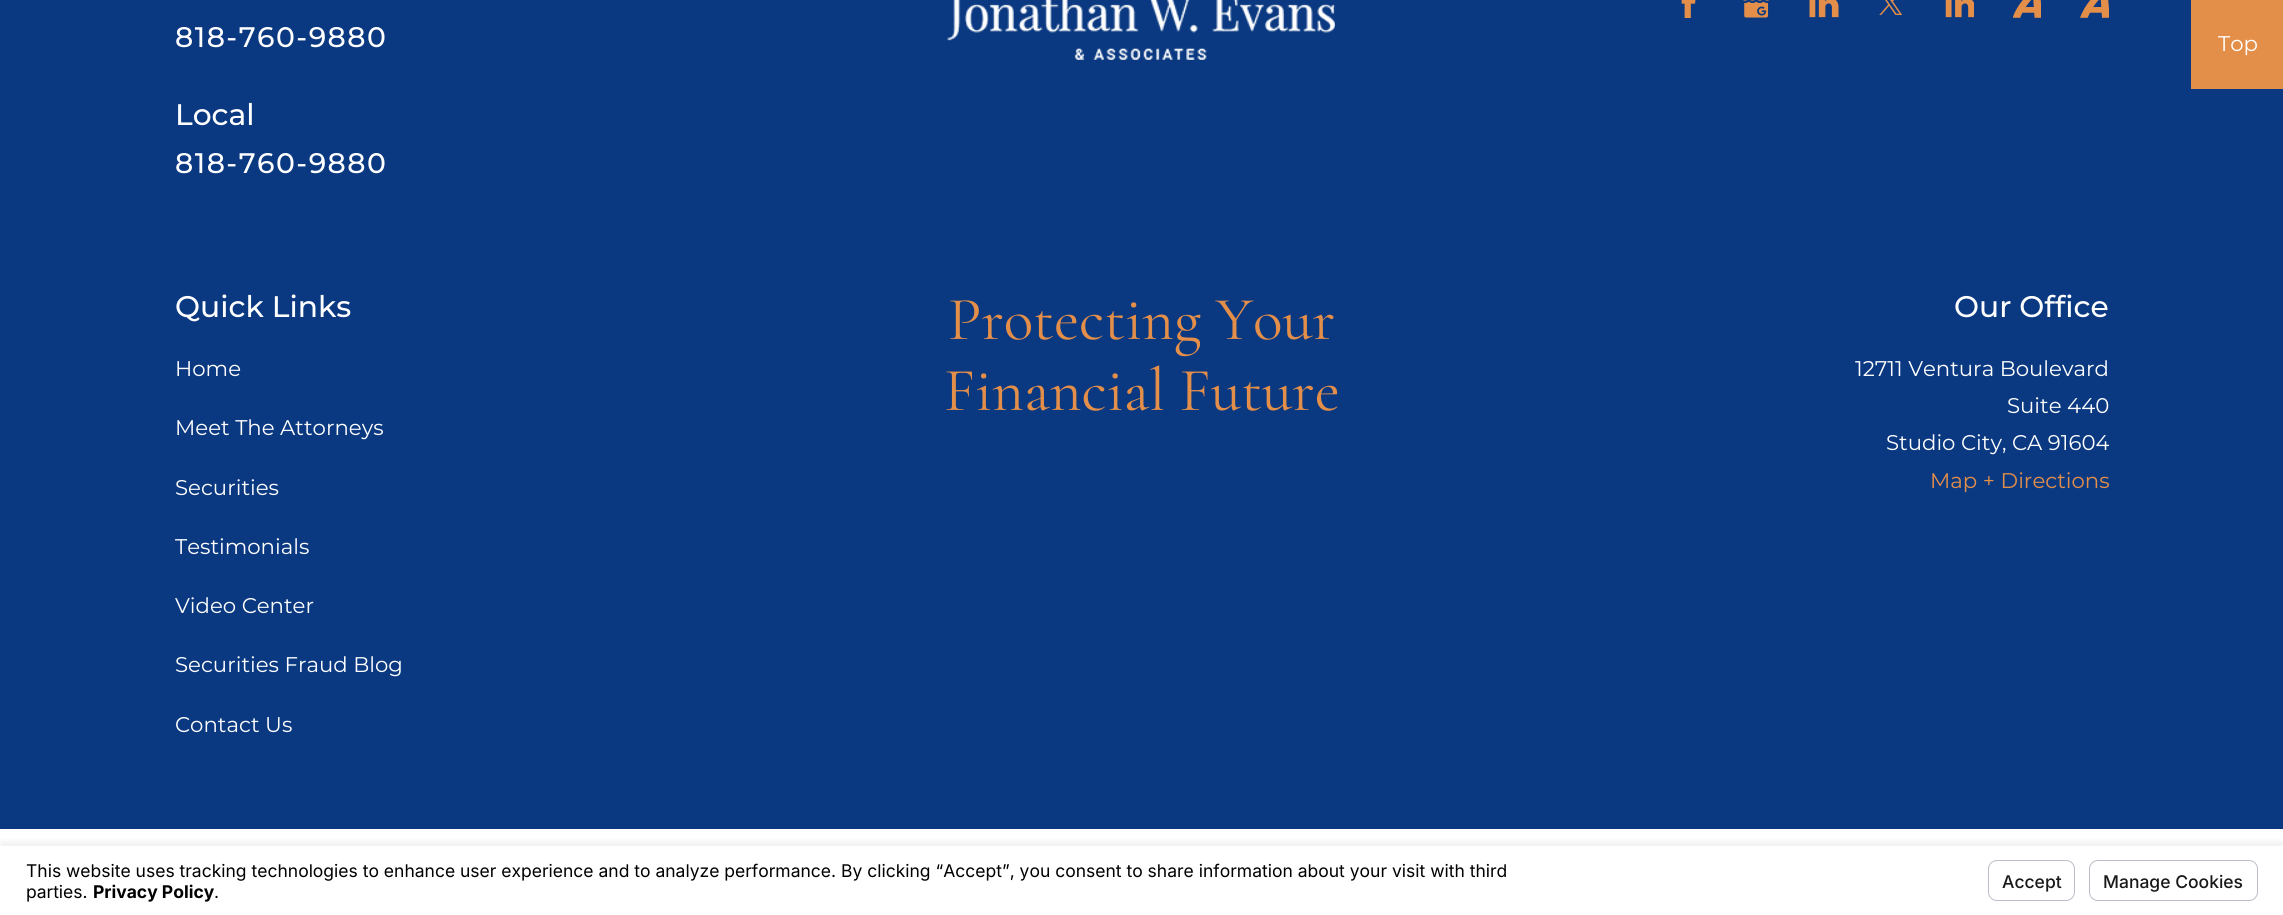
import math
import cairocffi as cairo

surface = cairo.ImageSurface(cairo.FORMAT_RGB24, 2283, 915)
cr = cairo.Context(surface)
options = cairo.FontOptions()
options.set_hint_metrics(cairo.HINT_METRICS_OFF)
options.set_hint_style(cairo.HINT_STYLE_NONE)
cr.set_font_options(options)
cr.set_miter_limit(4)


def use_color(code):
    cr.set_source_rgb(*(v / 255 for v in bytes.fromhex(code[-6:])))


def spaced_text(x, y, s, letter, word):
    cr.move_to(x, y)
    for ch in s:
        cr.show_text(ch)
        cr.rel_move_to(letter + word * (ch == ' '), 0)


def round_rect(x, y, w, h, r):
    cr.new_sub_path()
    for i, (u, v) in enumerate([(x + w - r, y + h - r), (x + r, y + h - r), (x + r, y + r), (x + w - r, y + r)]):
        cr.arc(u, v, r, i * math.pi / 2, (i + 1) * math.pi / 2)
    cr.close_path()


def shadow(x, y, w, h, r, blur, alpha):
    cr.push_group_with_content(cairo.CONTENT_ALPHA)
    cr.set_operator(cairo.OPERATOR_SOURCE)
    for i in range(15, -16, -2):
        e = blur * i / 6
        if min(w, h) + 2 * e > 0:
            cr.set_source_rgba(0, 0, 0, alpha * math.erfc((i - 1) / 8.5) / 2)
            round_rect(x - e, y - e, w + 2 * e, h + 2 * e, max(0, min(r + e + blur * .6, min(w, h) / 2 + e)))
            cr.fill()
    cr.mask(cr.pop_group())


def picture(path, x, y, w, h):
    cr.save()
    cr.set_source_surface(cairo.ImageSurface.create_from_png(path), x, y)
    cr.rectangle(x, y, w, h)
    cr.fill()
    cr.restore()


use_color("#ffffff")
cr.paint()
use_color("#0a3981")
cr.rectangle(0, 0, 2283, 829)
cr.fill()
picture("img1.png", 947, 0, 388, 60)
picture("img2.png", 1681, 0, 15, 18)
picture("img3.png", 1743, 0, 27, 18)
picture("img4.png", 1809, 0, 30, 18)
picture("img5.png", 1879, 0, 24, 15)
picture("img6.png", 1945, 0, 29, 18)
picture("img7.png", 2013, 0, 28, 18)
picture("img8.png", 2080, 0, 29, 18)
cr.select_font_face("Montserrat Medium")
cr.set_font_size(28.25)
use_color("#ffffff")
spaced_text(175, 47, "818-760-9880", 1.5, 0)
cr.set_font_size(29.75)
cr.move_to(175, 125)
cr.show_text("Local")
cr.set_font_size(28.25)
spaced_text(175, 173, "818-760-9880", 1.5, 0)
cr.set_font_size(29.75)
cr.move_to(175, 317)
cr.show_text("Quick Links")
cr.select_font_face("Montserrat")
cr.set_font_size(21.25)
cr.move_to(175, 376)
cr.show_text("Home")
cr.move_to(175, 435)
cr.show_text("Meet The Attorneys")
cr.move_to(175, 495)
cr.show_text("Securities")
cr.move_to(175, 554)
cr.show_text("Testimonials")
cr.move_to(175, 613)
cr.show_text("Video Center")
cr.move_to(175, 672)
cr.show_text("Securities Fraud Blog")
cr.move_to(175, 732)
cr.show_text("Contact Us")
cr.select_font_face("Cormorant Garamond")
cr.set_font_size(61.5)
use_color("#e38e49")
cr.move_to(948, 339)
cr.show_text("Protecting Your")
cr.move_to(944, 410)
cr.show_text("Financial Future")
cr.select_font_face("Montserrat Medium")
cr.set_font_size(29.75)
use_color("#ffffff")
cr.move_to(1954, 317)
cr.show_text("Our Office")
cr.select_font_face("Montserrat")
cr.set_font_size(21.25)
cr.move_to(1855, 376)
cr.show_text("12711 Ventura Boulevard")
cr.move_to(2007, 413)
cr.show_text("Suite 440")
cr.move_to(1886, 450)
cr.show_text("Studio City, CA 91604")
use_color("#e38e49")
cr.move_to(1930, 488)
cr.show_text("Map + Directions")
cr.rectangle(2191, 0, 92, 89)
cr.fill()
use_color("#ffffff")
cr.move_to(2218, 51)
cr.show_text("Top")
use_color("#000000")
shadow(0, 841, 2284, 69, 0, 2, 0.05)
use_color("#ffffff")
cr.rectangle(0, 846, 2283, 66)
cr.fill()
cr.select_font_face("Inter")
cr.set_font_size(17.5)
use_color("#000000")
cr.move_to(26, 877)
cr.show_text("This website uses tracking technologies to enhance user experience and to analyze performance. By clicking “Accept”, you consent to share information about your visit with third")
cr.move_to(26, 898)
cr.show_text("parties.")
cr.select_font_face("Inter", cairo.FONT_SLANT_NORMAL, cairo.FONT_WEIGHT_BOLD)
cr.move_to(93, 898)
cr.show_text("Privacy Policy")
cr.select_font_face("Inter")
cr.move_to(214, 898)
cr.show_text(".")
round_rect(1988.5, 860.5, 86, 40, 8.5)
use_color("#bcbec7")
cr.set_line_width(1)
cr.stroke()
cr.select_font_face("Inter Medium")
use_color("#191919")
cr.move_to(2002, 888)
cr.show_text("Accept")
round_rect(2089.5, 860.5, 168, 40, 8.5)
use_color("#bcbec7")
cr.stroke()
use_color("#191919")
cr.move_to(2103, 888)
cr.show_text("Manage Cookies")
surface.write_to_png("result.png")
